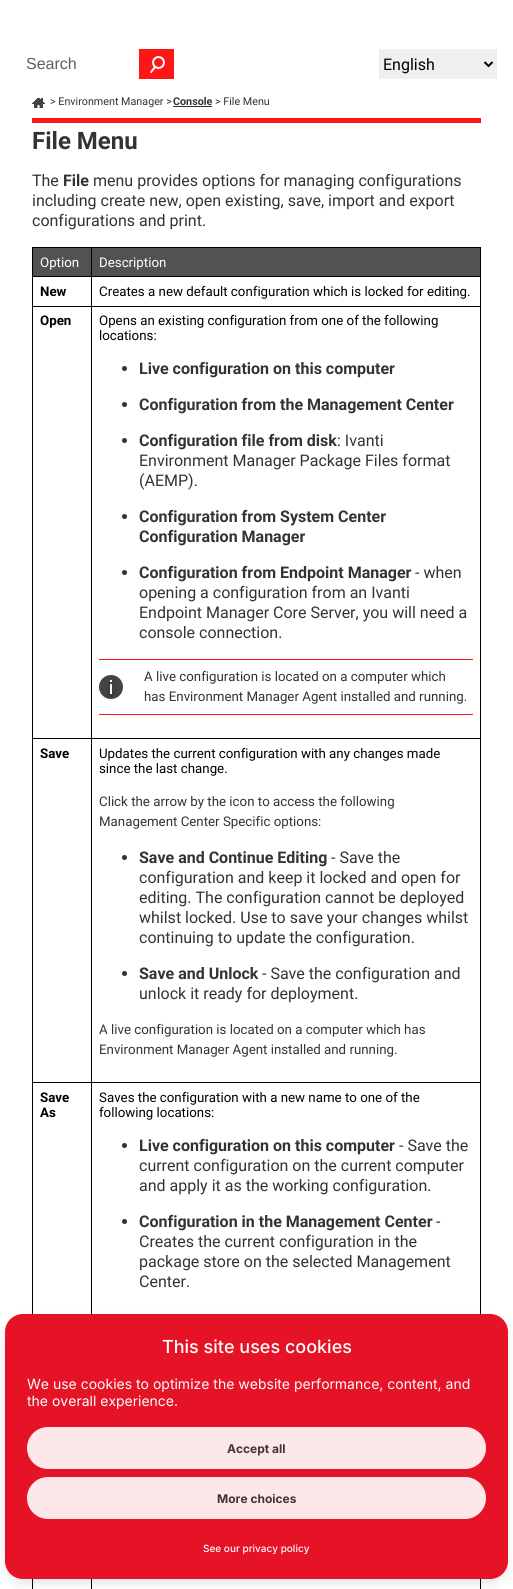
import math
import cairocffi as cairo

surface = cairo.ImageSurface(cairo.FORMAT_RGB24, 513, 1589)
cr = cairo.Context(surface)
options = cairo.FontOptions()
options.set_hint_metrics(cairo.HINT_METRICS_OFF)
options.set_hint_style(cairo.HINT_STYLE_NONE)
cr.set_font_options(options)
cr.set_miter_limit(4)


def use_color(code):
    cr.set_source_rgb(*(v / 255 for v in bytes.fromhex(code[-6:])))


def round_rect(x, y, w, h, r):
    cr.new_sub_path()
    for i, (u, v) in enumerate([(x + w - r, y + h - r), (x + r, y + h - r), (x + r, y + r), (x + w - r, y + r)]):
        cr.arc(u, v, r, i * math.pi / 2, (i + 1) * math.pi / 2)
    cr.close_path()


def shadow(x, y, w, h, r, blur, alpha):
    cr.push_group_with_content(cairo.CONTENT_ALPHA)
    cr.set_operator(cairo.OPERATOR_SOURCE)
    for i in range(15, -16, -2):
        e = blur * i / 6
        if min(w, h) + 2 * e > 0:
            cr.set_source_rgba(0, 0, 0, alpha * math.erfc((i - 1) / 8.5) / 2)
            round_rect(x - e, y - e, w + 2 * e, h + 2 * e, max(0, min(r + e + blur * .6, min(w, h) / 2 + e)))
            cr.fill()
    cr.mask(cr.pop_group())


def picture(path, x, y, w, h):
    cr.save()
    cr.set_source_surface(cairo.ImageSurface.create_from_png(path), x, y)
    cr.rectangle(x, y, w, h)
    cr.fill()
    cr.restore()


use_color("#ffffff")
cr.paint()
cr.select_font_face("Liberation Sans")
cr.set_font_size(16)
use_color("#5f5f5f")
cr.move_to(26, 69)
cr.show_text("Search")
use_color("#ff1515")
cr.rectangle(139, 49, 35, 30)
cr.fill()
picture("img1.png", 150, 56, 15, 17)
use_color("#efefef")
cr.rectangle(379, 49, 118, 30)
cr.fill()
cr.new_path()
cr.move_to(484.5, 62)
cr.line_to(488.5, 66)
cr.line_to(492.5, 62)
use_color("#000000")
cr.stroke()
cr.select_font_face("Roboto")
cr.move_to(383, 70)
cr.show_text("English")
use_color("#ff1515")
cr.rectangle(32, 118, 449, 5)
cr.fill()
picture("img2.png", 32, 98, 13, 10)
cr.set_font_size(10.75)
use_color("#333333")
cr.move_to(50, 105)
cr.show_text("> Environment Manager >")
cr.rectangle(173, 106, 39, 1)
cr.fill()
cr.select_font_face("Roboto", cairo.FONT_SLANT_NORMAL, cairo.FONT_WEIGHT_BOLD)
cr.move_to(173, 105)
cr.show_text("Console")
cr.select_font_face("Roboto")
cr.move_to(215, 105)
cr.show_text("> File Menu")
cr.select_font_face("Roboto", cairo.FONT_SLANT_NORMAL, cairo.FONT_WEIGHT_BOLD)
cr.set_font_size(24)
cr.move_to(32, 149)
cr.show_text("File Menu")
cr.select_font_face("Roboto")
cr.set_font_size(16)
cr.move_to(32, 186)
cr.show_text("The")
cr.select_font_face("Roboto", cairo.FONT_SLANT_NORMAL, cairo.FONT_WEIGHT_BOLD)
cr.move_to(63, 186)
cr.show_text("File")
cr.select_font_face("Roboto")
cr.move_to(93, 186)
cr.show_text("menu provides options for managing configurations")
cr.move_to(32, 206)
cr.show_text("including create new, open existing, save, import and export")
cr.move_to(32, 226)
cr.show_text("configurations and print.")
use_color("#000000")
cr.rectangle(32, 247, 449, 1)
cr.fill()
cr.rectangle(480, 247, 1, 1342)
cr.fill()
cr.rectangle(32, 247, 1, 1342)
cr.fill()
use_color("#525252")
cr.rectangle(33, 248, 58, 28)
cr.fill()
use_color("#000000")
cr.rectangle(91, 1082, 1, 232)
cr.fill()
cr.rectangle(91, 1082, 390, 1)
cr.fill()
cr.rectangle(91, 738, 1, 345)
cr.fill()
cr.rectangle(91, 738, 390, 1)
cr.fill()
cr.rectangle(91, 306, 1, 433)
cr.fill()
cr.rectangle(91, 306, 390, 1)
cr.fill()
cr.rectangle(91, 276, 1, 31)
cr.fill()
cr.rectangle(91, 276, 390, 1)
cr.fill()
cr.rectangle(91, 247, 1, 30)
cr.fill()
cr.rectangle(32, 276, 60, 1)
cr.fill()
cr.set_font_size(13.3)
use_color("#ffffff")
cr.move_to(40, 267)
cr.show_text("Option")
use_color("#525252")
cr.rectangle(92, 248, 388, 28)
cr.fill()
use_color("#ffffff")
cr.move_to(99, 267)
cr.show_text("Description")
use_color("#000000")
cr.rectangle(32, 306, 60, 1)
cr.fill()
cr.select_font_face("Roboto", cairo.FONT_SLANT_NORMAL, cairo.FONT_WEIGHT_BOLD)
cr.move_to(40, 296)
cr.show_text("New")
cr.select_font_face("Roboto")
cr.move_to(99, 296)
cr.show_text("Creates a new default configuration which is locked for editing.")
cr.rectangle(32, 738, 60, 1)
cr.fill()
cr.select_font_face("Roboto", cairo.FONT_SLANT_NORMAL, cairo.FONT_WEIGHT_BOLD)
cr.move_to(40, 325)
cr.show_text("Open")
cr.select_font_face("Roboto")
cr.move_to(99, 325)
cr.show_text("Opens an existing configuration from one of the following")
cr.move_to(99, 340)
cr.show_text("locations:")
use_color("#333333")
cr.new_path()
cr.arc(124.5, 368.5, 2.5, 0, 2 * math.pi)
cr.fill()
cr.select_font_face("Roboto", cairo.FONT_SLANT_NORMAL, cairo.FONT_WEIGHT_BOLD)
cr.set_font_size(16)
cr.move_to(139, 374)
cr.show_text("Live configuration on this computer")
cr.new_path()
cr.arc(124.5, 404.5, 2.5, 0, 2 * math.pi)
cr.fill()
cr.move_to(139, 410)
cr.show_text("Configuration from the Management Center")
cr.new_path()
cr.arc(124.5, 440.5, 2.5, 0, 2 * math.pi)
cr.fill()
cr.move_to(139, 446)
cr.show_text("Configuration file from disk")
cr.select_font_face("Roboto")
cr.move_to(337, 446)
cr.show_text(": Ivanti")
cr.move_to(139, 466)
cr.show_text("Environment Manager Package Files format")
cr.move_to(139, 486)
cr.show_text("(AEMP).")
cr.new_path()
cr.arc(124.5, 516.5, 2.5, 0, 2 * math.pi)
cr.fill()
cr.select_font_face("Roboto", cairo.FONT_SLANT_NORMAL, cairo.FONT_WEIGHT_BOLD)
cr.move_to(139, 522)
cr.show_text("Configuration from System Center")
cr.move_to(139, 542)
cr.show_text("Configuration Manager")
cr.new_path()
cr.arc(124.5, 572.5, 2.5, 0, 2 * math.pi)
cr.fill()
cr.move_to(139, 578)
cr.show_text("Configuration from Endpoint Manager")
cr.select_font_face("Roboto")
cr.move_to(415, 578)
cr.show_text("- when")
cr.move_to(139, 598)
cr.show_text("opening a configuration from an Ivanti")
cr.move_to(139, 618)
cr.show_text("Endpoint Manager Core Server, you will need a")
cr.move_to(139, 638)
cr.show_text("console connection.")
picture("img3.png", 99, 675, 24, 24)
use_color("#ff1515")
cr.rectangle(99, 659, 374, 1)
cr.fill()
cr.rectangle(99, 714, 374, 1)
cr.fill()
cr.set_font_size(13.3)
use_color("#333333")
cr.move_to(144, 681)
cr.show_text("A live configuration is located on a computer which")
cr.move_to(144, 701)
cr.show_text("has Environment Manager Agent installed and running.")
use_color("#000000")
cr.rectangle(32, 1082, 60, 1)
cr.fill()
cr.select_font_face("Roboto", cairo.FONT_SLANT_NORMAL, cairo.FONT_WEIGHT_BOLD)
cr.move_to(40, 758)
cr.show_text("Save")
cr.select_font_face("Roboto")
cr.move_to(99, 758)
cr.show_text("Updates the current configuration with any changes made")
cr.move_to(99, 773)
cr.show_text("since the last change.")
use_color("#333333")
cr.move_to(99, 806)
cr.show_text("Click the arrow by the icon to access the following")
cr.move_to(99, 826)
cr.show_text("Management Center Specific options:")
cr.new_path()
cr.arc(124.5, 857.5, 2.5, 0, 2 * math.pi)
cr.fill()
cr.select_font_face("Roboto", cairo.FONT_SLANT_NORMAL, cairo.FONT_WEIGHT_BOLD)
cr.set_font_size(16)
cr.move_to(139, 863)
cr.show_text("Save and Continue Editing")
cr.select_font_face("Roboto")
cr.move_to(331, 863)
cr.show_text("- Save the")
cr.move_to(139, 883)
cr.show_text("configuration and keep it locked and open for")
cr.move_to(139, 903)
cr.show_text("editing. The configuration cannot be deployed")
cr.move_to(139, 923)
cr.show_text("whilst locked. Use to save your changes whilst")
cr.move_to(139, 943)
cr.show_text("continuing to update the configuration.")
cr.new_path()
cr.arc(124.5, 973.5, 2.5, 0, 2 * math.pi)
cr.fill()
cr.select_font_face("Roboto", cairo.FONT_SLANT_NORMAL, cairo.FONT_WEIGHT_BOLD)
cr.move_to(139, 979)
cr.show_text("Save and Unlock")
cr.select_font_face("Roboto")
cr.move_to(262, 979)
cr.show_text("- Save the configuration and")
cr.move_to(139, 999)
cr.show_text("unlock it ready for deployment.")
cr.set_font_size(13.3)
cr.move_to(99, 1034)
cr.show_text("A live configuration is located on a computer which has")
cr.move_to(99, 1054)
cr.show_text("Environment Manager Agent installed and running.")
cr.select_font_face("Roboto", cairo.FONT_SLANT_NORMAL, cairo.FONT_WEIGHT_BOLD)
use_color("#000000")
cr.move_to(40, 1102)
cr.show_text("Save")
cr.move_to(40, 1117)
cr.show_text("As")
cr.select_font_face("Roboto")
cr.move_to(99, 1102)
cr.show_text("Saves the configuration with a new name to one of the")
cr.move_to(99, 1117)
cr.show_text("following locations:")
use_color("#333333")
cr.new_path()
cr.arc(124.5, 1145.5, 2.5, 0, 2 * math.pi)
cr.fill()
cr.select_font_face("Roboto", cairo.FONT_SLANT_NORMAL, cairo.FONT_WEIGHT_BOLD)
cr.set_font_size(16)
cr.move_to(139, 1151)
cr.show_text("Live configuration on this computer")
cr.select_font_face("Roboto")
cr.move_to(399, 1151)
cr.show_text("- Save the")
cr.move_to(139, 1171)
cr.show_text("current configuration on the current computer")
cr.move_to(139, 1191)
cr.show_text("and apply it as the working configuration.")
cr.new_path()
cr.arc(124.5, 1221.5, 2.5, 0, 2 * math.pi)
cr.fill()
cr.select_font_face("Roboto", cairo.FONT_SLANT_NORMAL, cairo.FONT_WEIGHT_BOLD)
cr.move_to(139, 1227)
cr.show_text("Configuration in the Management Center")
cr.select_font_face("Roboto")
cr.move_to(436, 1227)
cr.show_text("-")
cr.move_to(139, 1247)
cr.show_text("Creates the current configuration in the")
cr.move_to(139, 1267)
cr.show_text("package store on the selected Management")
cr.move_to(139, 1287)
cr.show_text("Center.")
use_color("#000000")
cr.rectangle(91, 1579, 1, 10)
cr.fill()
use_color("#000000")
shadow(5, 1319, 503, 265, 18, 5, 0.1)
use_color("#e61226")
round_rect(5.5, 1314.5, 502, 264, 17.5)
cr.fill_preserve()
cr.set_line_width(1)
cr.stroke()
cr.select_font_face("Inter Medium")
cr.set_font_size(18)
use_color("#ffffff")
cr.move_to(162, 1353)
cr.show_text("This site uses cookies")
cr.select_font_face("Inter")
cr.set_font_size(14)
cr.move_to(27, 1389)
cr.show_text("We use cookies to optimize the website performance, content, and")
cr.move_to(27, 1406)
cr.show_text("the overall experience.")
use_color("#fde7e9")
round_rect(27, 1427, 459, 42, 21)
cr.fill()
cr.select_font_face("Inter", cairo.FONT_SLANT_NORMAL, cairo.FONT_WEIGHT_BOLD)
cr.set_font_size(12)
use_color("#453032")
cr.move_to(227, 1453)
cr.show_text("Accept all")
use_color("#fde7e9")
round_rect(27, 1477, 459, 42, 21)
cr.fill()
use_color("#453032")
cr.move_to(217, 1503)
cr.show_text("More choices")
cr.select_font_face("Inter Medium")
cr.set_font_size(10)
use_color("#ffffff")
cr.move_to(203, 1552)
cr.show_text("See our privacy policy")
surface.write_to_png("result.png")
